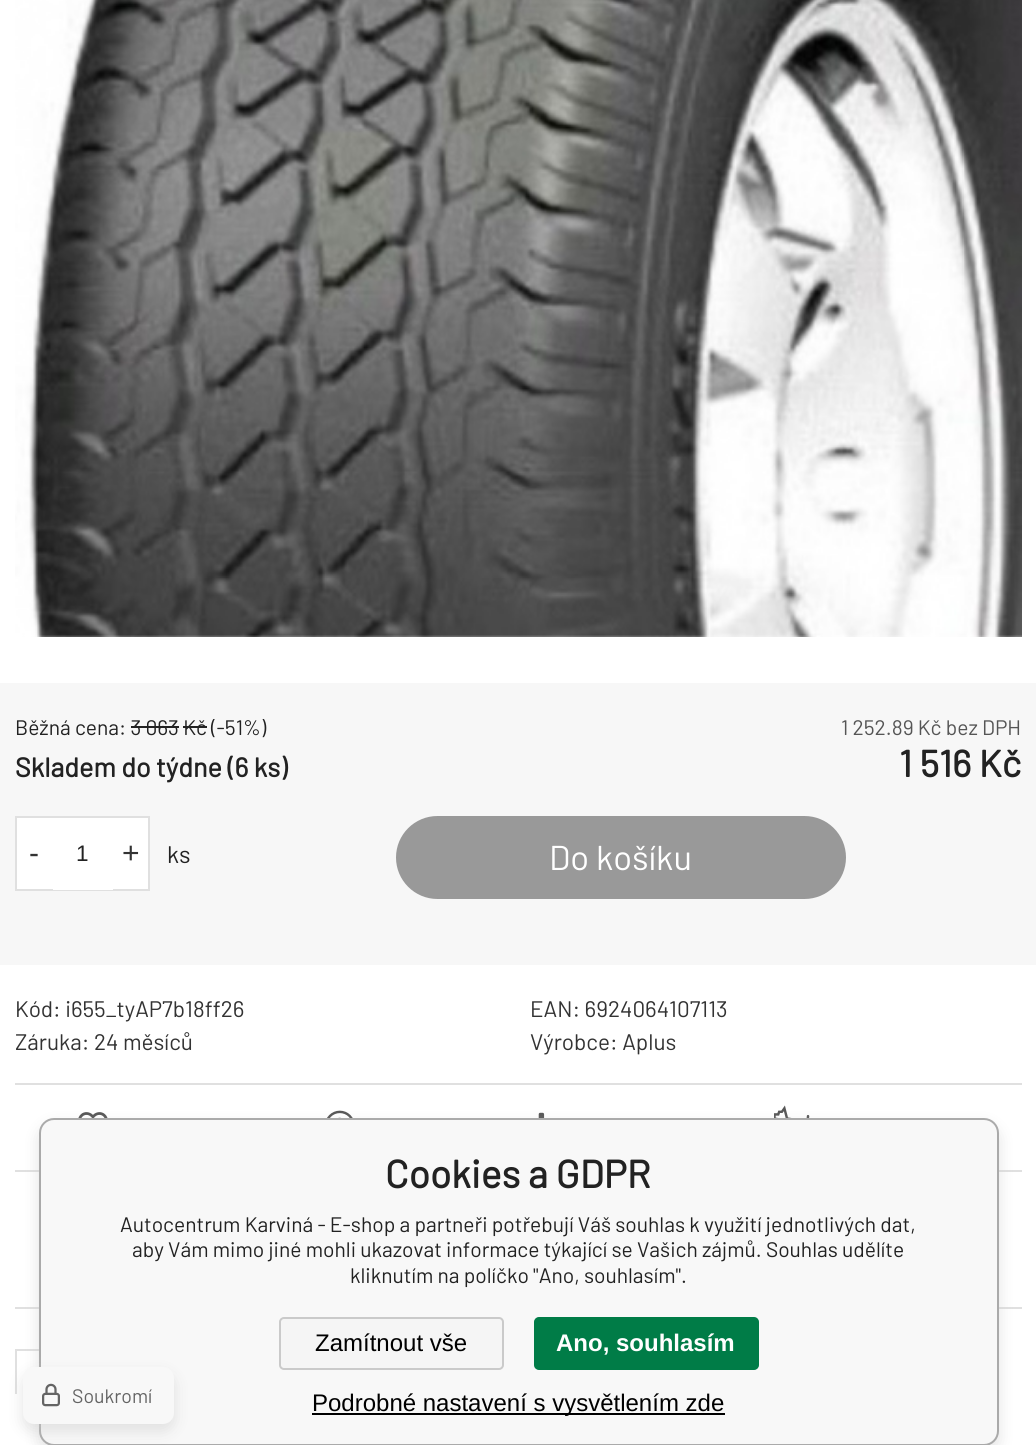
import math
import cairocffi as cairo

surface = cairo.ImageSurface(cairo.FORMAT_RGB24, 1036, 1445)
cr = cairo.Context(surface)
options = cairo.FontOptions()
options.set_hint_metrics(cairo.HINT_METRICS_OFF)
options.set_hint_style(cairo.HINT_STYLE_NONE)
cr.set_font_options(options)
cr.set_miter_limit(4)


def use_color(code):
    cr.set_source_rgb(*(v / 255 for v in bytes.fromhex(code[-6:])))


def round_rect(x, y, w, h, r):
    cr.new_sub_path()
    for i, (u, v) in enumerate([(x + w - r, y + h - r), (x + r, y + h - r), (x + r, y + r), (x + w - r, y + r)]):
        cr.arc(u, v, r, i * math.pi / 2, (i + 1) * math.pi / 2)
    cr.close_path()


def shadow(x, y, w, h, r, blur, alpha):
    cr.push_group_with_content(cairo.CONTENT_ALPHA)
    cr.set_operator(cairo.OPERATOR_SOURCE)
    for i in range(15, -16, -2):
        e = blur * i / 6
        if min(w, h) + 2 * e > 0:
            cr.set_source_rgba(0, 0, 0, alpha * math.erfc((i - 1) / 8.5) / 2)
            round_rect(x - e, y - e, w + 2 * e, h + 2 * e, max(0, min(r + e + blur * .6, min(w, h) / 2 + e)))
            cr.fill()
    cr.mask(cr.pop_group())


def picture(path, x, y, w, h):
    cr.save()
    cr.set_source_surface(cairo.ImageSurface.create_from_png(path), x, y)
    cr.rectangle(x, y, w, h)
    cr.fill()
    cr.restore()


use_color("#ffffff")
cr.paint()
picture("img1.png", 15, 0, 1007, 637)
use_color("#f7f7f7")
cr.rectangle(0, 683, 1036, 282)
cr.fill()
cr.select_font_face("Barlow")
cr.set_font_size(21)
use_color("#222222")
cr.move_to(15, 735)
cr.show_text("Běžná cena: 3 063 Kč (-51%)")
cr.rectangle(131, 726, 48, 2)
cr.fill()
cr.rectangle(183, 726, 24, 2)
cr.fill()
use_color("#555555")
cr.move_to(841, 735)
cr.show_text("1 252.89 Kč bez DPH")
cr.select_font_face("Barlow", cairo.FONT_SLANT_NORMAL, cairo.FONT_WEIGHT_BOLD)
cr.set_font_size(27)
use_color("#222222")
cr.move_to(15, 777)
cr.show_text("Skladem do týdne (6 ks)")
cr.set_font_size(37.5)
cr.move_to(899, 777)
cr.show_text("1 516 Kč")
use_color("#ffffff")
cr.rectangle(16, 817, 133, 73)
cr.fill_preserve()
use_color("#e0e0e0")
cr.stroke()
cr.select_font_face("Liberation Sans")
cr.set_font_size(30)
use_color("#333333")
cr.move_to(29, 863)
cr.show_text("-")
use_color("#ffffff")
cr.rectangle(53, 889, 60, 1)
cr.fill()
cr.set_font_size(22.5)
use_color("#222222")
cr.move_to(76, 861)
cr.show_text("1")
cr.set_font_size(30)
use_color("#333333")
cr.move_to(122, 863)
cr.show_text("+")
cr.select_font_face("Barlow")
cr.set_font_size(24)
use_color("#222222")
cr.move_to(167, 863)
cr.show_text("ks")
use_color("#999999")
round_rect(396, 816, 450, 83, 41.5)
cr.fill()
cr.set_font_size(34.5)
use_color("#ffffff")
cr.move_to(549, 870)
cr.show_text("Do košíku")
use_color("#e0e0e0")
cr.rectangle(15, 1083, 1007, 2)
cr.fill()
cr.set_font_size(22.5)
use_color("#333333")
cr.move_to(15, 1017)
cr.show_text("Kód: i655_tyAP7b18ff26")
cr.move_to(530, 1017)
cr.show_text("EAN: 6924064107113")
cr.move_to(15, 1050)
cr.show_text("Záruka: 24 měsíců")
cr.move_to(530, 1050)
cr.show_text("Výrobce: Aplus")
use_color("#e0e0e0")
cr.rectangle(15, 1170, 1007, 2)
cr.fill()
picture("img2.png", 78, 1112, 30, 6)
picture("img3.png", 327, 1110, 26, 8)
picture("img4.png", 538, 1112, 7, 6)
picture("img5.png", 774, 1105, 36, 13)
cr.rectangle(15, 1307, 1007, 2)
cr.fill()
cr.rectangle(15, 1349, 24, 2)
cr.fill()
cr.rectangle(15, 1349, 2, 45)
cr.fill()
use_color("#c8c8c8")
shadow(39, 1125, 960, 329, 15, 7.5, 0.5)
use_color("#f8f8f8")
round_rect(40, 1119, 958, 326, 14)
cr.fill_preserve()
use_color("#aaaaaa")
cr.stroke()
use_color("#c8c8c8")
shadow(23, 1374, 151, 57, 11, 7.5, 0.5)
use_color("#f8f8f8")
round_rect(23, 1367, 151, 57, 11)
cr.fill()
picture("img6.png", 42, 1383, 18, 24)
cr.set_font_size(19.5)
use_color("#646464")
cr.move_to(72, 1403)
cr.show_text("Soukromí")
cr.select_font_face("Barlow", cairo.FONT_SLANT_NORMAL, cairo.FONT_WEIGHT_BOLD)
cr.set_font_size(39)
use_color("#222222")
cr.move_to(385, 1188)
cr.show_text("Cookies a GDPR")
cr.select_font_face("Barlow")
cr.set_font_size(21)
cr.move_to(120, 1232)
cr.show_text("Autocentrum Karviná - E-shop a partneři potřebují Váš souhlas k využití jednotlivých dat,")
cr.move_to(132, 1257)
cr.show_text("aby Vám mimo jiné mohli ukazovat informace týkající se Vašich zájmů. Souhlas udělíte")
cr.move_to(350, 1283)
cr.show_text("kliknutím na políčko \"Ano, souhlasím\".")
use_color("#f5f5f5")
round_rect(280, 1318, 223, 51, 4)
cr.fill_preserve()
use_color("#cacaca")
cr.stroke()
cr.select_font_face("Liberation Sans")
cr.set_font_size(24)
use_color("#000000")
cr.move_to(315, 1351)
cr.show_text("Zamítnout vše")
use_color("#007c47")
round_rect(535, 1318, 223, 51, 4)
cr.fill_preserve()
cr.stroke()
cr.select_font_face("Liberation Sans", cairo.FONT_SLANT_NORMAL, cairo.FONT_WEIGHT_BOLD)
use_color("#ffffff")
cr.move_to(556, 1351)
cr.show_text("Ano, souhlasím")
use_color("#000000")
cr.rectangle(312, 1413, 413, 2)
cr.fill()
cr.select_font_face("Liberation Sans")
cr.move_to(312, 1411)
cr.show_text("Podrobné nastavení s vysvětlením zde")
surface.write_to_png("result.png")
